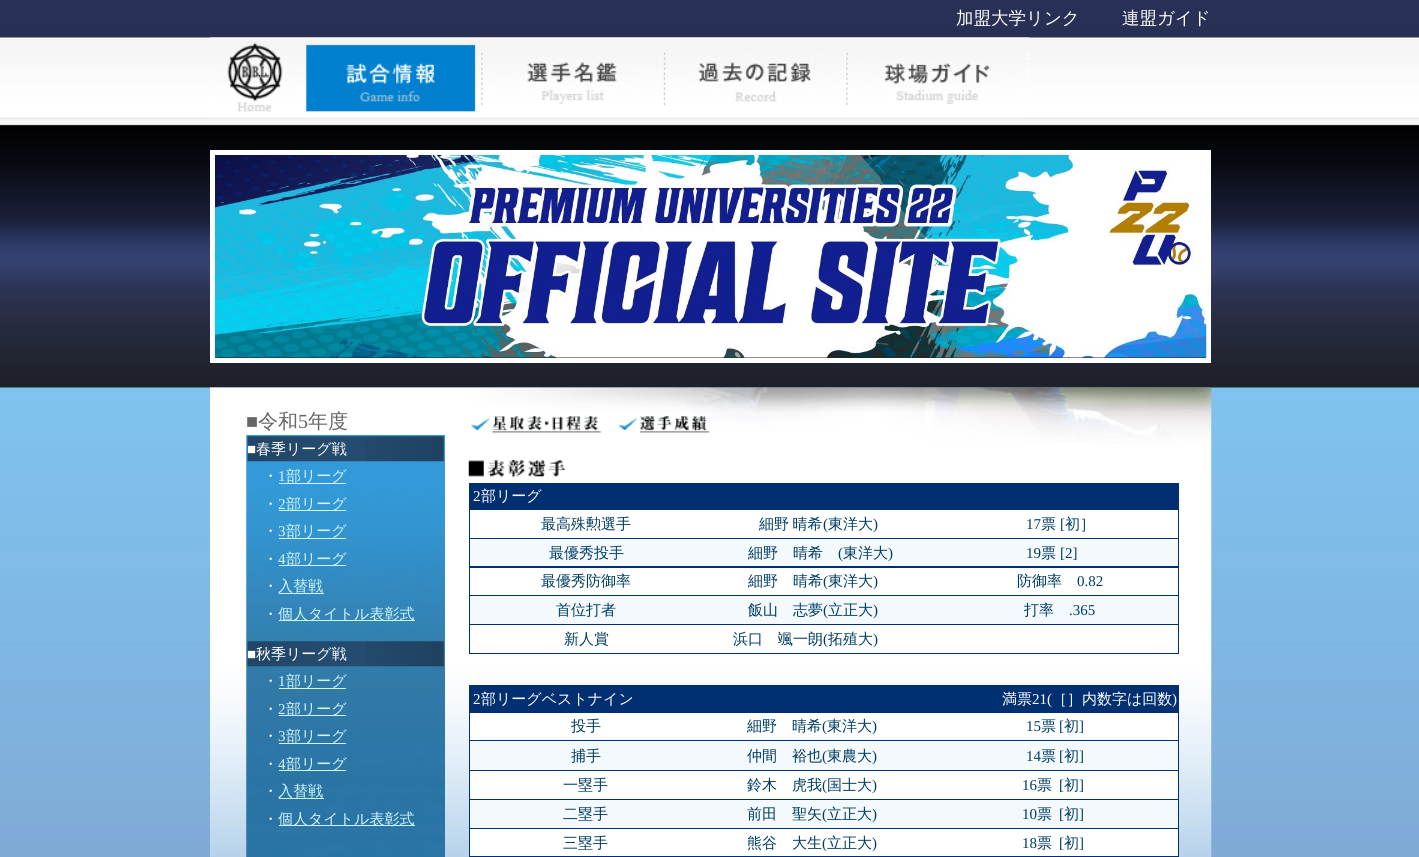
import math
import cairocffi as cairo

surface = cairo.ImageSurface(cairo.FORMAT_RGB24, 1419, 857)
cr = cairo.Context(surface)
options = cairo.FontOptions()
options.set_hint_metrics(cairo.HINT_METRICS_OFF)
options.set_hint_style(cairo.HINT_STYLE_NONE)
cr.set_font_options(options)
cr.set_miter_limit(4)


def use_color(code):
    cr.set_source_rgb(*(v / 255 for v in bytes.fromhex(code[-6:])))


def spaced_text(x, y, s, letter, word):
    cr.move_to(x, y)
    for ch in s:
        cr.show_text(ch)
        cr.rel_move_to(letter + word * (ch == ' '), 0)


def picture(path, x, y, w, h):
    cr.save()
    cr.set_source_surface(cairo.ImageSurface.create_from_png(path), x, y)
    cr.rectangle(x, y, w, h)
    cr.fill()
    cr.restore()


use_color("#ffffff")
cr.paint()
picture("img1.png", 0, 0, 1419, 857)
cr.select_font_face("WenQuanYi Zen Hei Medium")
cr.set_font_size(17.5)
use_color("#ffffff")
cr.move_to(956, 24)
cr.show_text("加盟大学リンク")
cr.move_to(1122, 24)
cr.show_text("連盟ガイド")
picture("img2.png", 210, 37, 89, 81)
picture("img3.png", 298, 37, 184, 81)
picture("img4.png", 481, 37, 183, 81)
picture("img5.png", 663, 37, 184, 81)
picture("img6.png", 846, 37, 183, 81)
cr.rectangle(212.5, 152.5, 996, 208)
cr.set_line_width(5)
cr.stroke()
picture("img7.png", 215, 155, 992, 203)
picture("img8.png", 210, 387, 1002, 470)
cr.select_font_face("Liberation Serif")
cr.set_font_size(20)
use_color("#666666")
cr.move_to(246, 428)
cr.show_text("■")
cr.select_font_face("WenQuanYi Zen Hei Medium")
cr.move_to(258, 428)
cr.show_text("令和")
cr.select_font_face("Liberation Serif")
cr.move_to(298, 428)
cr.show_text("5")
cr.select_font_face("WenQuanYi Zen Hei Medium")
cr.move_to(308, 428)
cr.show_text("年度")
picture("img9.png", 246, 435, 199, 422)
picture("img10.png", 247, 436, 197, 26)
cr.select_font_face("Liberation Serif")
cr.set_font_size(15)
use_color("#ffffff")
cr.move_to(247, 454)
cr.show_text("■")
cr.select_font_face("WenQuanYi Zen Hei Medium")
cr.move_to(256, 454)
cr.show_text("春季リーグ戦")
cr.move_to(263, 481)
cr.show_text("・")
cr.select_font_face("Liberation Serif")
use_color("#d0f8ff")
cr.move_to(278, 481)
cr.show_text("1")
cr.rectangle(279, 483, 67, 1)
cr.fill()
cr.select_font_face("WenQuanYi Zen Hei Medium")
cr.move_to(286, 481)
cr.show_text("部リーグ")
use_color("#ffffff")
cr.move_to(263, 509)
cr.show_text("・")
cr.select_font_face("Liberation Serif")
use_color("#d0f8ff")
cr.move_to(278, 509)
cr.show_text("2")
cr.rectangle(279, 510, 67, 1)
cr.fill()
cr.select_font_face("WenQuanYi Zen Hei Medium")
cr.move_to(286, 509)
cr.show_text("部リーグ")
use_color("#ffffff")
cr.move_to(263, 536)
cr.show_text("・")
cr.select_font_face("Liberation Serif")
use_color("#d0f8ff")
cr.move_to(278, 536)
cr.show_text("3")
cr.rectangle(279, 538, 67, 1)
cr.fill()
cr.select_font_face("WenQuanYi Zen Hei Medium")
cr.move_to(286, 536)
cr.show_text("部リーグ")
use_color("#ffffff")
cr.move_to(263, 564)
cr.show_text("・")
cr.select_font_face("Liberation Serif")
use_color("#d0f8ff")
cr.move_to(278, 564)
cr.show_text("4")
cr.rectangle(279, 565, 67, 1)
cr.fill()
cr.select_font_face("WenQuanYi Zen Hei Medium")
cr.move_to(286, 564)
cr.show_text("部リーグ")
use_color("#ffffff")
cr.move_to(263, 591)
cr.show_text("・")
use_color("#d0f8ff")
cr.rectangle(279, 593, 45, 1)
cr.fill()
cr.move_to(278, 591)
cr.show_text("入替戦")
use_color("#ffffff")
cr.move_to(263, 619)
cr.show_text("・")
use_color("#d0f8ff")
cr.rectangle(279, 620, 136, 1)
cr.fill()
cr.move_to(278, 619)
cr.show_text("個人タイトル表彰式")
picture("img11.png", 247, 641, 197, 26)
cr.select_font_face("Liberation Serif")
use_color("#ffffff")
cr.move_to(247, 659)
cr.show_text("■")
cr.select_font_face("WenQuanYi Zen Hei Medium")
cr.move_to(256, 659)
cr.show_text("秋季リーグ戦")
cr.move_to(263, 686)
cr.show_text("・")
cr.select_font_face("Liberation Serif")
use_color("#d0f8ff")
cr.move_to(278, 686)
cr.show_text("1")
cr.rectangle(279, 688, 67, 1)
cr.fill()
cr.select_font_face("WenQuanYi Zen Hei Medium")
cr.move_to(286, 686)
cr.show_text("部リーグ")
use_color("#ffffff")
cr.move_to(263, 714)
cr.show_text("・")
cr.select_font_face("Liberation Serif")
use_color("#d0f8ff")
cr.move_to(278, 714)
cr.show_text("2")
cr.rectangle(279, 715, 67, 1)
cr.fill()
cr.select_font_face("WenQuanYi Zen Hei Medium")
cr.move_to(286, 714)
cr.show_text("部リーグ")
use_color("#ffffff")
cr.move_to(263, 741)
cr.show_text("・")
cr.select_font_face("Liberation Serif")
use_color("#d0f8ff")
cr.move_to(278, 741)
cr.show_text("3")
cr.rectangle(279, 743, 67, 1)
cr.fill()
cr.select_font_face("WenQuanYi Zen Hei Medium")
cr.move_to(286, 741)
cr.show_text("部リーグ")
use_color("#ffffff")
cr.move_to(263, 769)
cr.show_text("・")
cr.select_font_face("Liberation Serif")
use_color("#d0f8ff")
cr.move_to(278, 769)
cr.show_text("4")
cr.rectangle(279, 770, 67, 1)
cr.fill()
cr.select_font_face("WenQuanYi Zen Hei Medium")
cr.move_to(286, 769)
cr.show_text("部リーグ")
use_color("#ffffff")
cr.move_to(263, 796)
cr.show_text("・")
use_color("#d0f8ff")
cr.rectangle(279, 798, 45, 1)
cr.fill()
cr.move_to(278, 796)
cr.show_text("入替戦")
use_color("#ffffff")
cr.move_to(263, 824)
cr.show_text("・")
use_color("#d0f8ff")
cr.rectangle(279, 825, 136, 1)
cr.fill()
cr.move_to(278, 824)
cr.show_text("個人タイトル表彰式")
picture("img12.png", 471, 415, 131, 18)
picture("img13.png", 618, 415, 92, 18)
picture("img14.png", 468, 460, 98, 18)
use_color("#003072")
cr.rectangle(469, 483, 710, 171)
cr.fill()
cr.select_font_face("Liberation Serif")
use_color("#ffffff")
cr.move_to(473, 501)
cr.show_text("2")
cr.select_font_face("WenQuanYi Zen Hei Medium")
cr.move_to(481, 501)
cr.show_text("部リーグ")
cr.rectangle(470, 510, 708, 28)
cr.fill()
use_color("#003c62")
cr.move_to(541, 529)
cr.show_text("最高殊勲選手")
spaced_text(759, 529, "細野 晴希", 0, -1)
cr.select_font_face("Liberation Serif")
cr.move_to(823, 529)
cr.show_text("(")
cr.select_font_face("WenQuanYi Zen Hei Medium")
cr.move_to(828, 529)
cr.show_text("東洋大")
cr.select_font_face("Liberation Serif")
cr.move_to(873, 529)
cr.show_text(")")
cr.move_to(1026, 529)
cr.show_text("17")
cr.select_font_face("WenQuanYi Zen Hei Medium")
cr.move_to(1041, 529)
cr.show_text("票")
cr.select_font_face("Liberation Serif")
cr.move_to(1060, 529)
cr.show_text("[")
cr.select_font_face("WenQuanYi Zen Hei Medium")
cr.move_to(1065, 529)
cr.show_text("初］")
use_color("#f4f9fd")
cr.rectangle(470, 539, 708, 27)
cr.fill()
use_color("#003c62")
cr.move_to(549, 558)
cr.show_text("最優秀投手")
cr.move_to(748, 558)
cr.show_text("細野　晴希")
cr.select_font_face("Liberation Serif")
cr.move_to(838, 558)
cr.show_text("(")
cr.select_font_face("WenQuanYi Zen Hei Medium")
cr.move_to(843, 558)
cr.show_text("東洋大")
cr.select_font_face("Liberation Serif")
cr.move_to(888, 558)
cr.show_text(")")
cr.move_to(1026, 558)
cr.show_text("19")
cr.select_font_face("WenQuanYi Zen Hei Medium")
cr.move_to(1041, 558)
cr.show_text("票")
cr.select_font_face("Liberation Serif")
cr.move_to(1060, 558)
cr.show_text("[2]")
use_color("#ffffff")
cr.rectangle(470, 568, 708, 27)
cr.fill()
cr.select_font_face("WenQuanYi Zen Hei Medium")
use_color("#003c62")
cr.move_to(541, 586)
cr.show_text("最優秀防御率")
cr.move_to(748, 586)
cr.show_text("細野　晴希")
cr.select_font_face("Liberation Serif")
cr.move_to(823, 586)
cr.show_text("(")
cr.select_font_face("WenQuanYi Zen Hei Medium")
cr.move_to(828, 586)
cr.show_text("東洋大")
cr.select_font_face("Liberation Serif")
cr.move_to(873, 586)
cr.show_text(")")
cr.select_font_face("WenQuanYi Zen Hei Medium")
cr.move_to(1017, 586)
cr.show_text("防御率")
cr.select_font_face("Liberation Serif")
cr.move_to(1077, 586)
cr.show_text("0.82")
use_color("#f4f9fd")
cr.rectangle(470, 596, 708, 28)
cr.fill()
cr.select_font_face("WenQuanYi Zen Hei Medium")
use_color("#003c62")
cr.move_to(556, 615)
cr.show_text("首位打者")
cr.move_to(748, 615)
cr.show_text("飯山　志夢")
cr.select_font_face("Liberation Serif")
cr.move_to(823, 615)
cr.show_text("(")
cr.select_font_face("WenQuanYi Zen Hei Medium")
cr.move_to(828, 615)
cr.show_text("立正大")
cr.select_font_face("Liberation Serif")
cr.move_to(873, 615)
cr.show_text(")")
cr.select_font_face("WenQuanYi Zen Hei Medium")
cr.move_to(1024, 615)
cr.show_text("打率")
cr.select_font_face("Liberation Serif")
cr.move_to(1069, 615)
cr.show_text(".365")
use_color("#ffffff")
cr.rectangle(470, 625, 708, 28)
cr.fill()
cr.select_font_face("WenQuanYi Zen Hei Medium")
use_color("#003c62")
cr.move_to(564, 644)
cr.show_text("新人賞")
cr.move_to(733, 644)
cr.show_text("浜口　颯一朗")
cr.select_font_face("Liberation Serif")
cr.move_to(823, 644)
cr.show_text("(")
cr.select_font_face("WenQuanYi Zen Hei Medium")
cr.move_to(828, 644)
cr.show_text("拓殖大")
cr.select_font_face("Liberation Serif")
cr.move_to(873, 644)
cr.show_text(")")
use_color("#003072")
cr.rectangle(469, 685, 710, 172)
cr.fill()
use_color("#ffffff")
cr.move_to(473, 704)
cr.show_text("2")
cr.select_font_face("WenQuanYi Zen Hei Medium")
cr.move_to(481, 704)
cr.show_text("部リーグベストナイン")
cr.move_to(1002, 704)
cr.show_text("満票")
cr.select_font_face("Liberation Serif")
cr.move_to(1032, 704)
cr.show_text("21(")
cr.select_font_face("WenQuanYi Zen Hei Medium")
cr.move_to(1052, 704)
cr.show_text("［］内数字は回数")
cr.select_font_face("Liberation Serif")
cr.move_to(1172, 704)
cr.show_text(")")
cr.rectangle(470, 713, 708, 27)
cr.fill()
cr.select_font_face("WenQuanYi Zen Hei Medium")
use_color("#003c62")
cr.move_to(571, 731)
cr.show_text("投手")
cr.move_to(747, 731)
cr.show_text("細野　晴希")
cr.select_font_face("Liberation Serif")
cr.move_to(822, 731)
cr.show_text("(")
cr.select_font_face("WenQuanYi Zen Hei Medium")
cr.move_to(827, 731)
cr.show_text("東洋大")
cr.select_font_face("Liberation Serif")
cr.move_to(872, 731)
cr.show_text(")")
cr.move_to(1026, 731)
cr.show_text("15")
cr.select_font_face("WenQuanYi Zen Hei Medium")
cr.move_to(1041, 731)
cr.show_text("票")
cr.select_font_face("Liberation Serif")
cr.move_to(1059, 731)
cr.show_text("[")
cr.select_font_face("WenQuanYi Zen Hei Medium")
cr.move_to(1064, 731)
cr.show_text("初")
cr.select_font_face("Liberation Serif")
cr.move_to(1079, 731)
cr.show_text("]")
use_color("#f4f9fd")
cr.rectangle(470, 741, 708, 29)
cr.fill()
cr.select_font_face("WenQuanYi Zen Hei Medium")
use_color("#003c62")
cr.move_to(571, 761)
cr.show_text("捕手")
cr.move_to(747, 761)
cr.show_text("仲間　裕也")
cr.select_font_face("Liberation Serif")
cr.move_to(822, 761)
cr.show_text("(")
cr.select_font_face("WenQuanYi Zen Hei Medium")
cr.move_to(827, 761)
cr.show_text("東農大")
cr.select_font_face("Liberation Serif")
cr.move_to(872, 761)
cr.show_text(")")
cr.move_to(1026, 761)
cr.show_text("14")
cr.select_font_face("WenQuanYi Zen Hei Medium")
cr.move_to(1041, 761)
cr.show_text("票")
cr.select_font_face("Liberation Serif")
cr.move_to(1059, 761)
cr.show_text("[")
cr.select_font_face("WenQuanYi Zen Hei Medium")
cr.move_to(1064, 761)
cr.show_text("初")
cr.select_font_face("Liberation Serif")
cr.move_to(1079, 761)
cr.show_text("]")
use_color("#ffffff")
cr.rectangle(470, 771, 708, 28)
cr.fill()
cr.select_font_face("WenQuanYi Zen Hei Medium")
use_color("#003c62")
cr.move_to(563, 790)
cr.show_text("一塁手")
cr.move_to(747, 790)
cr.show_text("鈴木　虎我")
cr.select_font_face("Liberation Serif")
cr.move_to(822, 790)
cr.show_text("(")
cr.select_font_face("WenQuanYi Zen Hei Medium")
cr.move_to(827, 790)
cr.show_text("国士大")
cr.select_font_face("Liberation Serif")
cr.move_to(872, 790)
cr.show_text(")")
cr.move_to(1022, 790)
cr.show_text("16")
cr.select_font_face("WenQuanYi Zen Hei Medium")
cr.move_to(1037, 790)
cr.show_text("票")
cr.select_font_face("Liberation Serif")
cr.move_to(1059, 790)
cr.show_text("[")
cr.select_font_face("WenQuanYi Zen Hei Medium")
cr.move_to(1064, 790)
cr.show_text("初")
cr.select_font_face("Liberation Serif")
cr.move_to(1079, 790)
cr.show_text("]")
use_color("#f4f9fd")
cr.rectangle(470, 800, 708, 28)
cr.fill()
cr.select_font_face("WenQuanYi Zen Hei Medium")
use_color("#003c62")
cr.move_to(563, 819)
cr.show_text("二塁手")
cr.move_to(747, 819)
cr.show_text("前田　聖矢")
cr.select_font_face("Liberation Serif")
cr.move_to(822, 819)
cr.show_text("(")
cr.select_font_face("WenQuanYi Zen Hei Medium")
cr.move_to(827, 819)
cr.show_text("立正大")
cr.select_font_face("Liberation Serif")
cr.move_to(872, 819)
cr.show_text(")")
cr.move_to(1022, 819)
cr.show_text("10")
cr.select_font_face("WenQuanYi Zen Hei Medium")
cr.move_to(1037, 819)
cr.show_text("票")
cr.select_font_face("Liberation Serif")
cr.move_to(1059, 819)
cr.show_text("[")
cr.select_font_face("WenQuanYi Zen Hei Medium")
cr.move_to(1064, 819)
cr.show_text("初")
cr.select_font_face("Liberation Serif")
cr.move_to(1079, 819)
cr.show_text("]")
use_color("#ffffff")
cr.rectangle(470, 829, 708, 27)
cr.fill()
cr.select_font_face("WenQuanYi Zen Hei Medium")
use_color("#003c62")
cr.move_to(563, 848)
cr.show_text("三塁手")
cr.move_to(747, 848)
cr.show_text("熊谷　大生")
cr.select_font_face("Liberation Serif")
cr.move_to(822, 848)
cr.show_text("(")
cr.select_font_face("WenQuanYi Zen Hei Medium")
cr.move_to(827, 848)
cr.show_text("立正大")
cr.select_font_face("Liberation Serif")
cr.move_to(872, 848)
cr.show_text(")")
cr.move_to(1022, 848)
cr.show_text("18")
cr.select_font_face("WenQuanYi Zen Hei Medium")
cr.move_to(1037, 848)
cr.show_text("票")
cr.select_font_face("Liberation Serif")
cr.move_to(1059, 848)
cr.show_text("[")
cr.select_font_face("WenQuanYi Zen Hei Medium")
cr.move_to(1064, 848)
cr.show_text("初")
cr.select_font_face("Liberation Serif")
cr.move_to(1079, 848)
cr.show_text("]")
surface.write_to_png("result.png")
